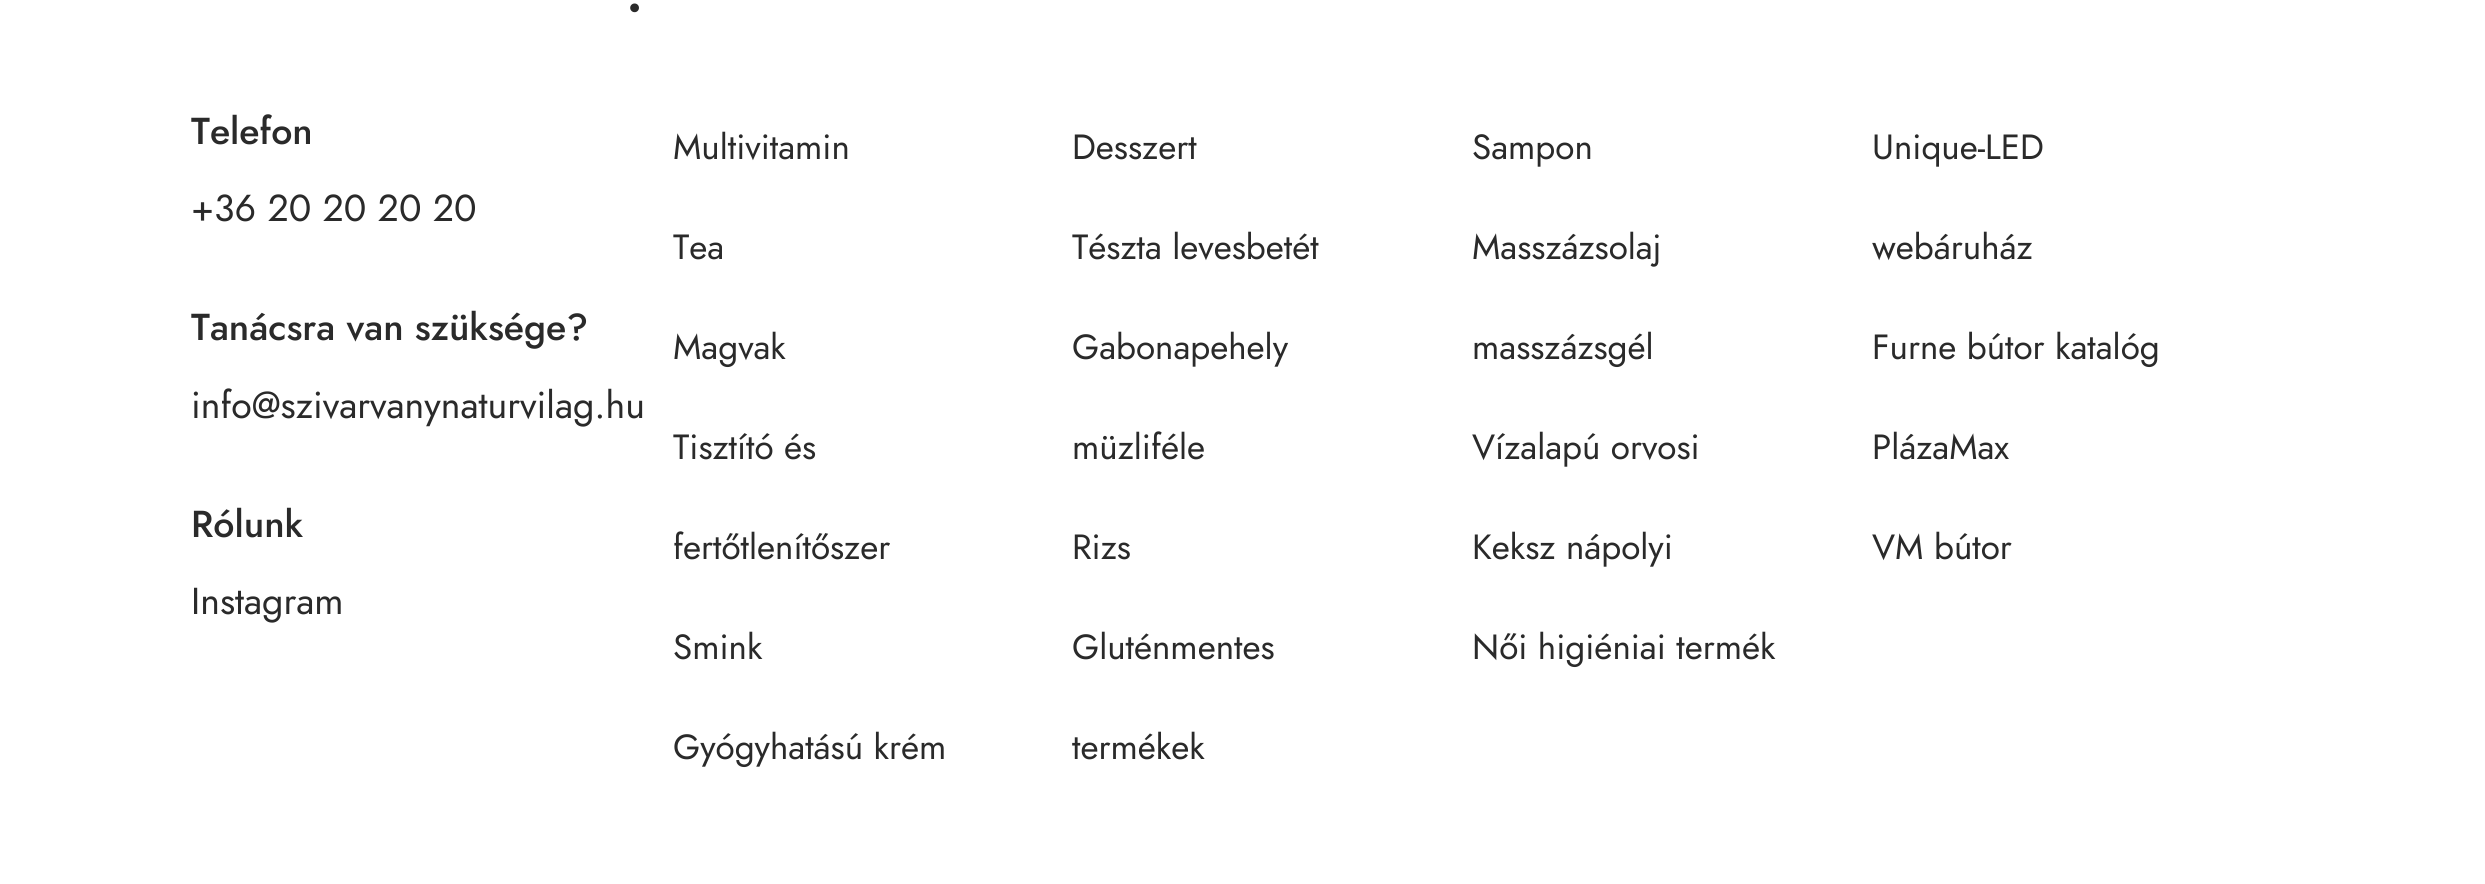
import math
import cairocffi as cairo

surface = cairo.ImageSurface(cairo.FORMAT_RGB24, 2485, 884)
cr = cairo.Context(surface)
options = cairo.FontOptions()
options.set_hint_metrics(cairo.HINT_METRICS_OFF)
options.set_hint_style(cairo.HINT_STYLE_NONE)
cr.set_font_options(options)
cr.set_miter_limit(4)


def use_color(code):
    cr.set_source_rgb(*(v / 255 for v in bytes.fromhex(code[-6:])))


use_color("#ffffff")
cr.paint()
cr.select_font_face("Jost Medium")
cr.set_font_size(62)
use_color("#2a2a2a")
cr.move_to(625, 11)
cr.show_text(".")
cr.set_font_size(37.5)
cr.move_to(191, 144)
cr.show_text("Telefon")
cr.select_font_face("Jost")
cr.move_to(191, 221)
cr.show_text("+36 20 20 20 20")
cr.select_font_face("Jost Medium")
cr.move_to(191, 340)
cr.show_text("Tanácsra van szüksége?")
cr.select_font_face("Jost")
cr.move_to(191, 418)
cr.show_text("info@szivarvanynaturvilag.hu")
cr.select_font_face("Jost Medium")
cr.move_to(191, 537)
cr.show_text("Rólunk")
cr.select_font_face("Jost")
cr.move_to(191, 614)
cr.show_text("Instagram")
cr.set_font_size(35)
cr.move_to(673, 159)
cr.show_text("Multivitamin")
cr.move_to(673, 259)
cr.show_text("Tea")
cr.move_to(673, 359)
cr.show_text("Magvak")
cr.move_to(673, 459)
cr.show_text("Tisztító és")
cr.move_to(673, 559)
cr.show_text("fertőtlenítőszer")
cr.move_to(673, 659)
cr.show_text("Smink")
cr.move_to(673, 759)
cr.show_text("Gyógyhatású krém")
cr.move_to(1072, 159)
cr.show_text("Desszert")
cr.move_to(1072, 259)
cr.show_text("Tészta levesbetét")
cr.move_to(1072, 359)
cr.show_text("Gabonapehely")
cr.move_to(1072, 459)
cr.show_text("müzliféle")
cr.move_to(1072, 559)
cr.show_text("Rizs")
cr.move_to(1072, 659)
cr.show_text("Gluténmentes")
cr.move_to(1072, 759)
cr.show_text("termékek")
cr.move_to(1472, 159)
cr.show_text("Sampon")
cr.move_to(1472, 259)
cr.show_text("Masszázsolaj")
cr.move_to(1472, 359)
cr.show_text("masszázsgél")
cr.move_to(1472, 459)
cr.show_text("Vízalapú orvosi")
cr.move_to(1472, 559)
cr.show_text("Keksz nápolyi")
cr.move_to(1472, 659)
cr.show_text("Női higiéniai termék")
cr.move_to(1872, 159)
cr.show_text("Unique-LED")
cr.move_to(1872, 259)
cr.show_text("webáruház")
cr.move_to(1872, 359)
cr.show_text("Furne bútor katalóg")
cr.move_to(1872, 459)
cr.show_text("PlázaMax")
cr.move_to(1872, 559)
cr.show_text("VM bútor")
surface.write_to_png("result.png")
